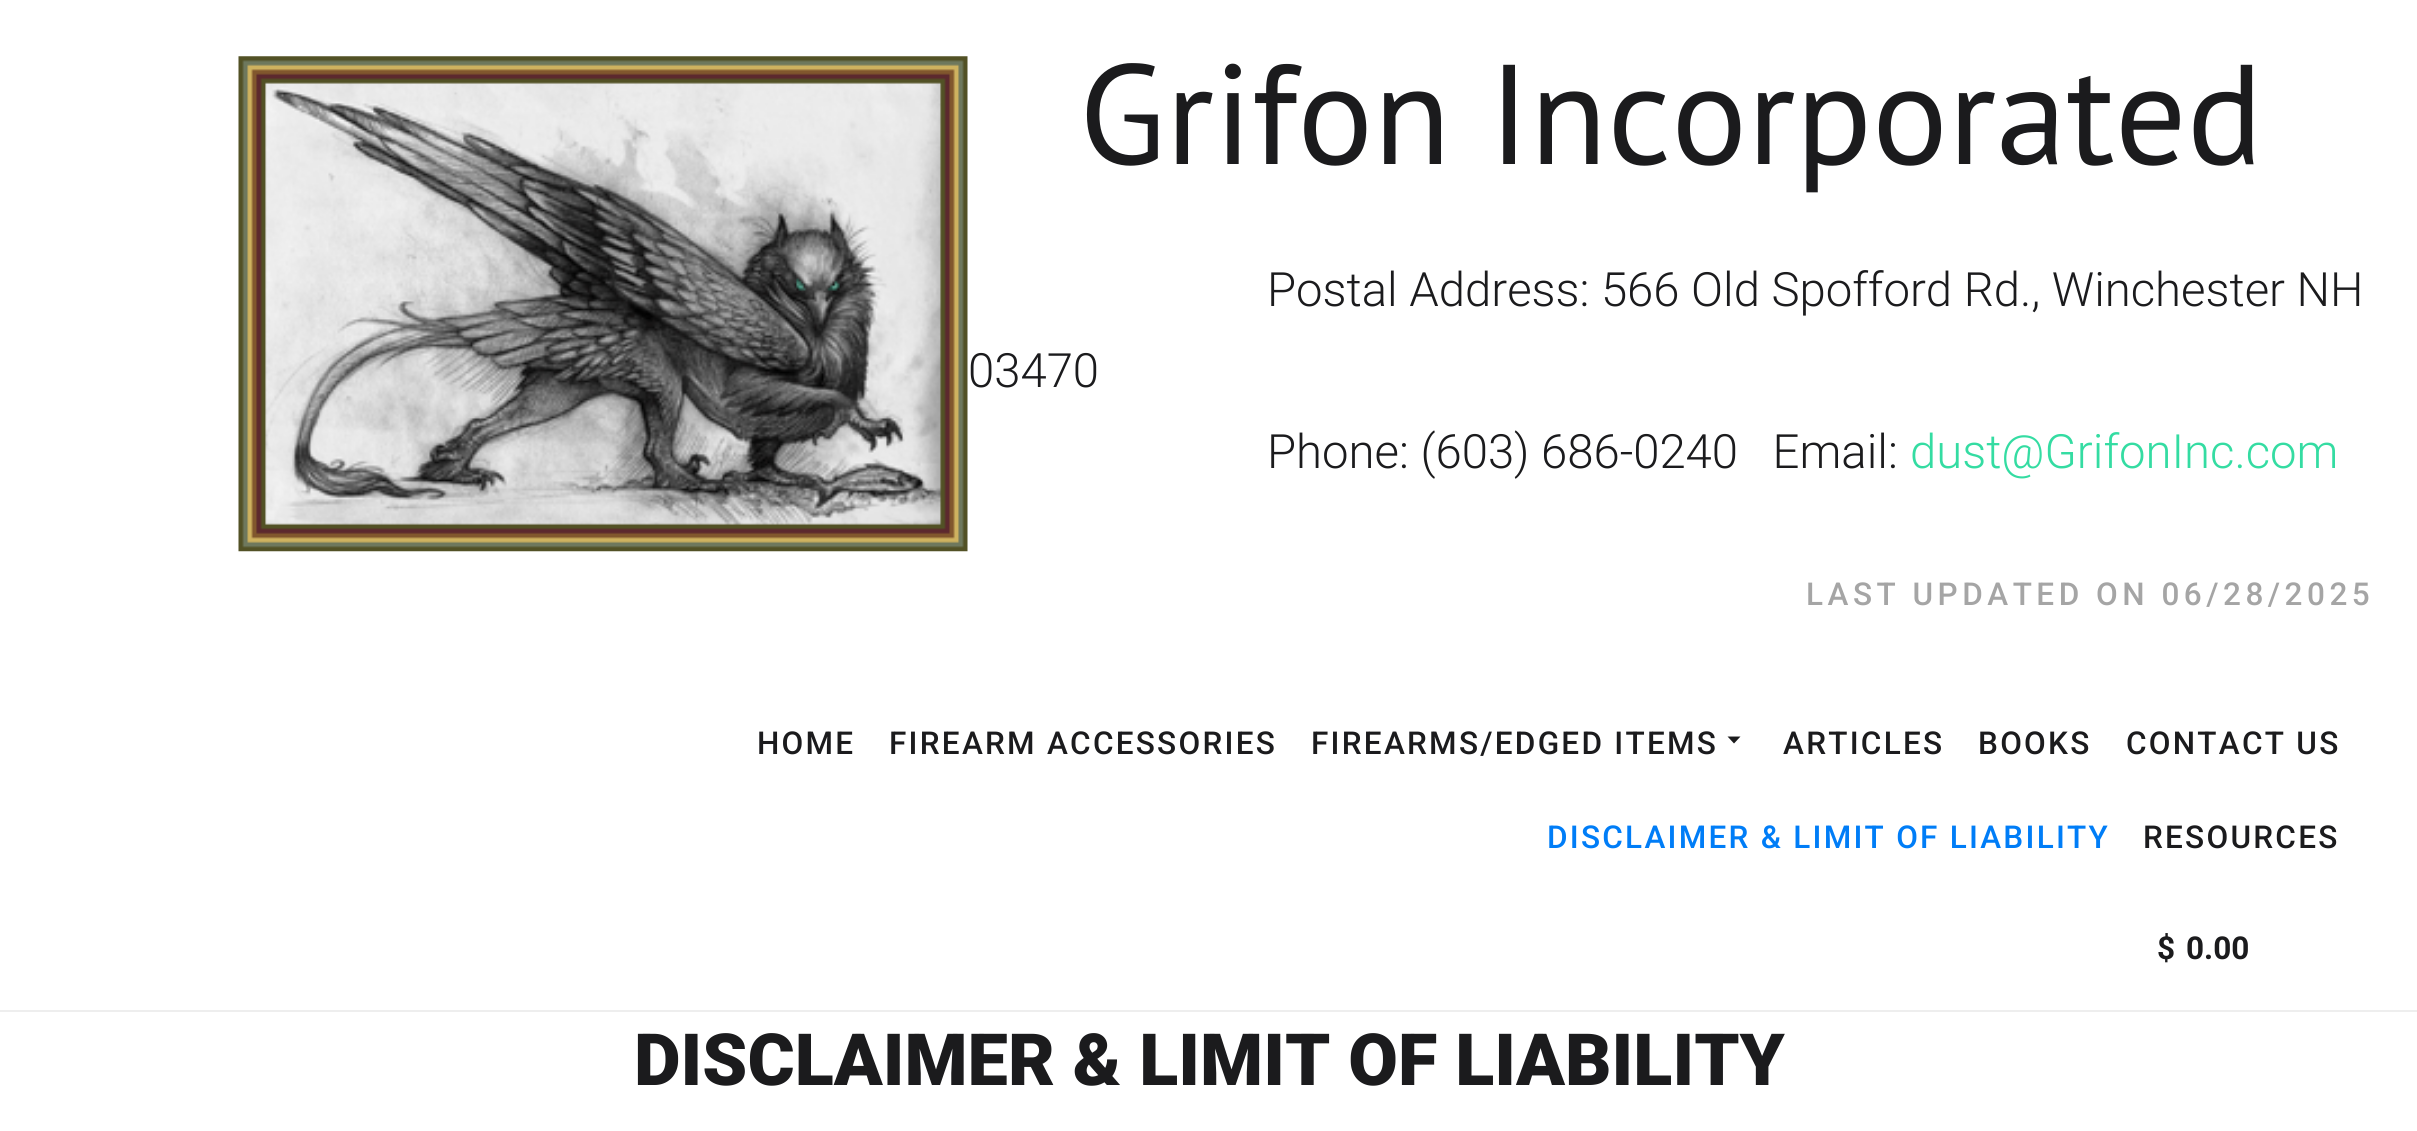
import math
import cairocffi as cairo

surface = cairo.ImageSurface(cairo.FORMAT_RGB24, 2417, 1131)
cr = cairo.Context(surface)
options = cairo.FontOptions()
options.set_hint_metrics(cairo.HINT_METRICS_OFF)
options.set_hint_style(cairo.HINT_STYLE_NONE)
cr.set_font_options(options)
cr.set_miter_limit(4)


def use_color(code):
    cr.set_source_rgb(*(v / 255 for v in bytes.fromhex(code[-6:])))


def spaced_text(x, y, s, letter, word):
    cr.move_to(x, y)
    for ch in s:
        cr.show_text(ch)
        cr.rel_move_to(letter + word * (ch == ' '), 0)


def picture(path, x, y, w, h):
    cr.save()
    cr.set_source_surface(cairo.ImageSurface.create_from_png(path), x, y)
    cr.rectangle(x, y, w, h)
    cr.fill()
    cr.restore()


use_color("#ffffff")
cr.paint()
use_color("#eeeeee")
cr.rectangle(0, 1010, 2417, 2)
cr.fill()
picture("img1.png", 238, 56, 730, 496)
cr.select_font_face("PT Sans")
cr.set_font_size(141.75)
use_color("#1b1b1d")
cr.move_to(1079, 164)
cr.show_text("Grifon Incorporated")
cr.select_font_face("Roboto Light")
cr.set_font_size(47.25)
cr.move_to(1267, 306)
cr.show_text("Postal Address: 566 Old Spofford Rd., Winchester NH")
cr.move_to(968, 387)
cr.show_text("03470")
cr.move_to(1267, 468)
cr.show_text("Phone: (603) 686-0240   Email:")
use_color("#34dca2")
cr.move_to(1910, 468)
cr.show_text("dust@GrifonInc.com")
cr.select_font_face("Roboto Medium")
cr.set_font_size(31.5)
use_color("#a5a5a5")
spaced_text(1806, 605, "LAST UPDATED ON 06/28/2025", 4.5, 0)
use_color("#1b1b1d")
spaced_text(757, 754, "HOME", 2.25, 0)
spaced_text(889, 754, "FIREARM ACCESSORIES", 2.25, 0)
spaced_text(1311, 754, "FIREARMS/EDGED ITEMS", 2.25, 0)
cr.new_path()
cr.move_to(1727.5, 736.5)
cr.line_to(1740.5, 736.5)
cr.line_to(1734, 743.5)
cr.close_path()
cr.fill()
spaced_text(1783, 754, "ARTICLES", 2.25, 0)
spaced_text(1978, 754, "BOOKS", 2.25, 0)
spaced_text(2126, 754, "CONTACT US", 2.25, 0)
use_color("#007df7")
spaced_text(1547, 848, "DISCLAIMER & LIMIT OF LIABILITY", 2.25, 0)
use_color("#1b1b1d")
spaced_text(2143, 848, "RESOURCES", 2.25, 0)
cr.select_font_face("Roboto", cairo.FONT_SLANT_NORMAL, cairo.FONT_WEIGHT_BOLD)
cr.move_to(2157, 959)
cr.show_text("$")
cr.move_to(2186, 959)
cr.show_text("0.00")
cr.select_font_face("Roboto Black")
cr.set_font_size(72)
cr.move_to(634, 1085)
cr.show_text("DISCLAIMER & LIMIT OF LIABILITY")
surface.write_to_png("result.png")
